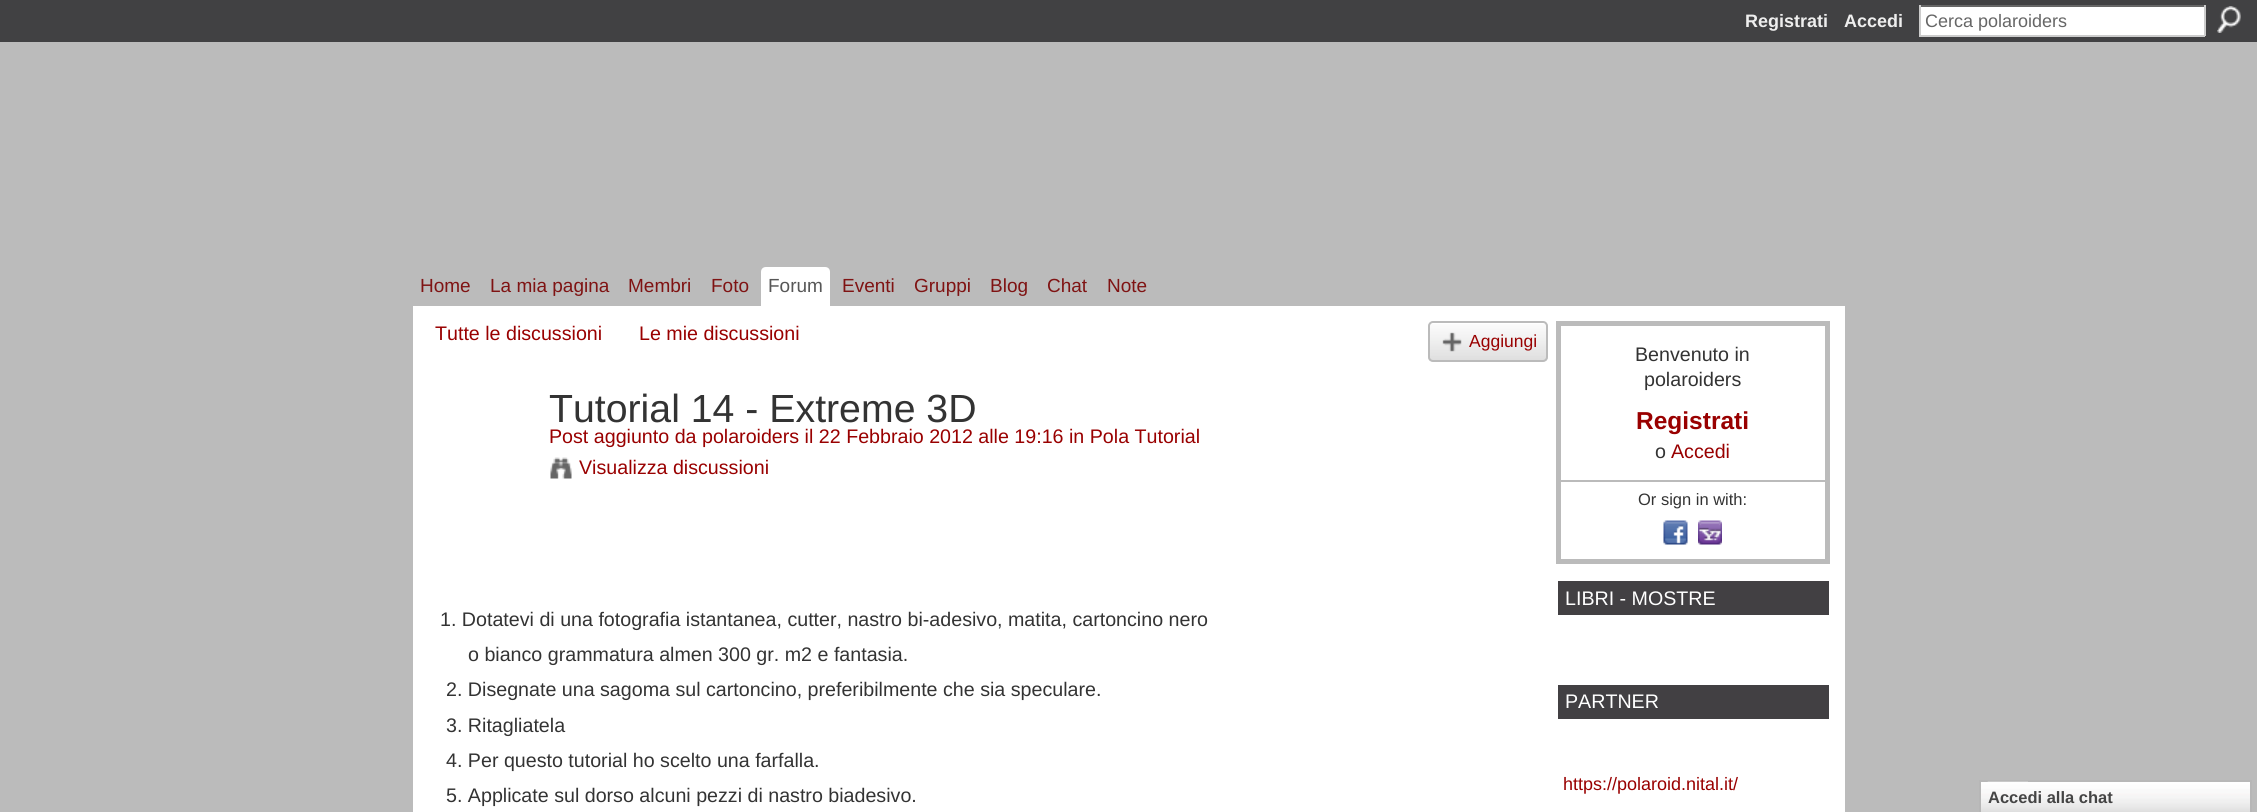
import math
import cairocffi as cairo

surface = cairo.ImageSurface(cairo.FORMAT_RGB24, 2257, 812)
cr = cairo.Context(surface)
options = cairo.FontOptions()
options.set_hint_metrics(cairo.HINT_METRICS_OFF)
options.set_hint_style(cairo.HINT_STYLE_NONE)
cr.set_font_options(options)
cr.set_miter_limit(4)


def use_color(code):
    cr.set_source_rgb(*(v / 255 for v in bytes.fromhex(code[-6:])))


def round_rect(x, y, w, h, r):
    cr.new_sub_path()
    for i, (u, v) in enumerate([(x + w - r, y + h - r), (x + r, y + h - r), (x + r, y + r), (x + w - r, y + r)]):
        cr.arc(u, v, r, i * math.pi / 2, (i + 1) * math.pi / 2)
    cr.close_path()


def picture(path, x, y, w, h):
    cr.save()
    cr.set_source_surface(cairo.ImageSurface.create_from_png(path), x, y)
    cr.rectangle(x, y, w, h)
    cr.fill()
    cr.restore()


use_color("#bbbbbb")
cr.paint()
use_color("#414143")
cr.rectangle(0, 0, 2257, 42)
cr.fill()
cr.select_font_face("Liberation Sans", cairo.FONT_SLANT_NORMAL, cairo.FONT_WEIGHT_BOLD)
cr.set_font_size(18)
use_color("#eeeeee")
cr.move_to(1745, 27)
cr.show_text("Registrati")
cr.move_to(1844, 27)
cr.show_text("Accedi")
use_color("#ffffff")
cr.rectangle(1921, 7, 283, 28)
cr.fill()
use_color("#666666")
cr.rectangle(1919, 5, 286, 2)
cr.fill()
use_color("#cccccc")
cr.rectangle(2204, 5, 2, 31)
cr.fill()
cr.rectangle(1919, 35, 286, 2)
cr.fill()
cr.rectangle(1919, 5, 2, 31)
cr.fill()
cr.select_font_face("Liberation Sans")
use_color("#666666")
cr.move_to(1925, 27)
cr.show_text("Cerca polaroiders")
picture("img1.png", 2217, 6, 24, 27)
cr.set_font_size(19)
use_color("#7f1313")
cr.move_to(420, 292)
cr.show_text("Home")
cr.move_to(490, 292)
cr.show_text("La mia pagina")
cr.move_to(628, 292)
cr.show_text("Membri")
cr.move_to(711, 292)
cr.show_text("Foto")
use_color("#ffffff")
cr.new_path()
cr.move_to(766, 267)
cr.line_to(825, 267)
cr.curve_to(828, 267, 830, 269, 830, 272)
cr.line_to(830, 306)
cr.line_to(761, 306)
cr.line_to(761, 272)
cr.curve_to(761, 269, 763, 267, 766, 267)
cr.close_path()
cr.fill()
use_color("#575757")
cr.move_to(768, 292)
cr.show_text("Forum")
use_color("#7f1313")
cr.move_to(842, 292)
cr.show_text("Eventi")
cr.move_to(914, 292)
cr.show_text("Gruppi")
cr.move_to(990, 292)
cr.show_text("Blog")
cr.move_to(1047, 292)
cr.show_text("Chat")
cr.move_to(1107, 292)
cr.show_text("Note")
use_color("#ffffff")
cr.rectangle(413, 306, 1432, 506)
cr.fill()
cr.set_font_size(19.65)
use_color("#990000")
cr.move_to(435, 340)
cr.show_text("Tutte le discussioni")
cr.move_to(639, 340)
cr.show_text("Le mie discussioni")
picture("img2.png", 1428, 324, 120, 38)
round_rect(1429, 322, 118, 39, 4)
use_color("#bbbbbb")
cr.stroke()
picture("img3.png", 1442, 332, 20, 20)
cr.set_font_size(17.5)
use_color("#990000")
cr.move_to(1469, 347)
cr.show_text("Aggiungi")
cr.set_font_size(39.25)
use_color("#333333")
cr.move_to(549, 422)
cr.show_text("Tutorial 14 - Extreme 3D")
cr.set_font_size(19.65)
use_color("#990000")
cr.move_to(549, 443)
cr.show_text("Post aggiunto da polaroiders il 22 Febbraio 2012 alle 19:16 in Pola Tutorial")
picture("img4.png", 550, 457, 22, 22)
cr.move_to(579, 474)
cr.show_text("Visualizza discussioni")
use_color("#333333")
cr.move_to(440, 626)
cr.show_text("1. Dotatevi di una fotografia istantanea, cutter, nastro bi-adesivo, matita, cartoncino nero")
cr.move_to(468, 661)
cr.show_text("o bianco grammatura almen 300 gr. m2 e fantasia.")
cr.move_to(446, 696)
cr.show_text("2. Disegnate una sagoma sul cartoncino, preferibilmente che sia speculare.")
cr.move_to(446, 732)
cr.show_text("3. Ritagliatela")
cr.move_to(446, 767)
cr.show_text("4. Per questo tutorial ho scelto una farfalla.")
cr.move_to(446, 802)
cr.show_text("5. Applicate sul dorso alcuni pezzi di nastro biadesivo.")
cr.rectangle(1558.5, 323.5, 269, 238)
use_color("#bbbbbb")
cr.set_line_width(5)
cr.stroke()
use_color("#333333")
cr.move_to(1635, 361)
cr.show_text("Benvenuto in")
cr.move_to(1644, 386)
cr.show_text("polaroiders")
cr.select_font_face("Liberation Sans", cairo.FONT_SLANT_NORMAL, cairo.FONT_WEIGHT_BOLD)
cr.set_font_size(24.5)
use_color("#990000")
cr.move_to(1636, 429)
cr.show_text("Registrati")
cr.select_font_face("Liberation Sans")
cr.set_font_size(19.65)
use_color("#333333")
cr.move_to(1655, 458)
cr.show_text("o")
use_color("#990000")
cr.move_to(1671, 458)
cr.show_text("Accedi")
use_color("#bbbbbb")
cr.rectangle(1560, 480, 266, 2)
cr.fill()
cr.set_font_size(16.5)
use_color("#333333")
cr.move_to(1638, 505)
cr.show_text("Or sign in with:")
picture("img5.png", 1663, 520, 25, 25)
picture("img6.png", 1698, 520, 24, 25)
use_color("#424043")
cr.rectangle(1558, 581, 271, 34)
cr.fill()
cr.set_font_size(19.65)
use_color("#ffffff")
cr.move_to(1565, 605)
cr.show_text("LIBRI - MOSTRE")
use_color("#424043")
cr.rectangle(1558, 685, 271, 34)
cr.fill()
use_color("#ffffff")
cr.move_to(1565, 708)
cr.show_text("PARTNER")
cr.set_font_size(18)
use_color("#990000")
cr.move_to(1563, 790)
cr.show_text("https://polaroid.nital.it/")
picture("img7.png", 1981, 782, 269, 30)
cr.rectangle(1980, 781, 271, 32)
use_color("#b7b7b7")
cr.set_line_width(2)
cr.stroke()
picture("img8.png", 1987, 781, 41, 1)
cr.select_font_face("Liberation Sans", cairo.FONT_SLANT_NORMAL, cairo.FONT_WEIGHT_BOLD)
cr.set_font_size(16.5)
use_color("#454545")
cr.move_to(1988, 803)
cr.show_text("Accedi alla chat")
surface.write_to_png("result.png")
